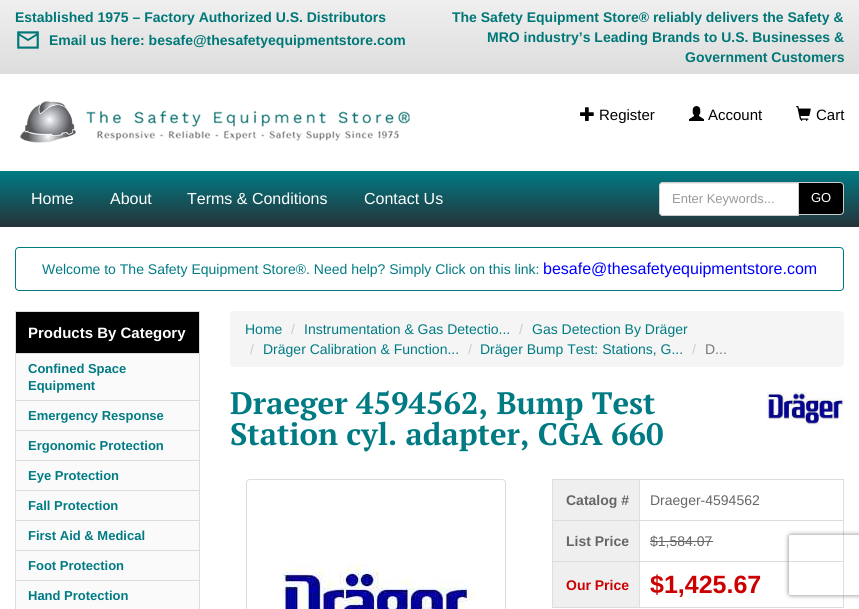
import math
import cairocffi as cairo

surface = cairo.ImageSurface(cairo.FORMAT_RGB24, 859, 609)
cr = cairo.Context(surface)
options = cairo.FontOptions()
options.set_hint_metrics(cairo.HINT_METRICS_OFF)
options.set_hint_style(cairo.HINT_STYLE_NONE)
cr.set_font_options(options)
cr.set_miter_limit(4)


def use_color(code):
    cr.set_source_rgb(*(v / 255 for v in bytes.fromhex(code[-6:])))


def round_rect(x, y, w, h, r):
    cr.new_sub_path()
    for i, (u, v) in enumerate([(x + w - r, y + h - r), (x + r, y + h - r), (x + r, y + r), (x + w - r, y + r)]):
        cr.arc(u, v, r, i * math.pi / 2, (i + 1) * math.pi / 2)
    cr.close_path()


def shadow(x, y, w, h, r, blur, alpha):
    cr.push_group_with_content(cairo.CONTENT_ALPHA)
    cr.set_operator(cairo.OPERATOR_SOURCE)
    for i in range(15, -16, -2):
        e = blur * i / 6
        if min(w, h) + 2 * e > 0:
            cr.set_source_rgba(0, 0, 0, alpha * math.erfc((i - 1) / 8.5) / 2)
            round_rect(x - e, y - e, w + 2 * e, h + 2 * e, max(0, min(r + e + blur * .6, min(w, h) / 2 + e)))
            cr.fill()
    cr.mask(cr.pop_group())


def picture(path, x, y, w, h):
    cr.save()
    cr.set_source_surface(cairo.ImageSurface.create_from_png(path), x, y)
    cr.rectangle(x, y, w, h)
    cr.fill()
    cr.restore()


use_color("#ffffff")
cr.paint()
gradient = cairo.LinearGradient(430, 0, 430, 74)
gradient.add_color_stop_rgba(0, 0.937, 0.937, 0.937, 1)
gradient.add_color_stop_rgba(1, 0.867, 0.867, 0.867, 1)
cr.set_source(gradient)
cr.rectangle(0, 0, 859, 74)
cr.fill()
cr.select_font_face("Liberation Sans", cairo.FONT_SLANT_NORMAL, cairo.FONT_WEIGHT_BOLD)
cr.set_font_size(14)
use_color("#007777")
cr.move_to(15, 22)
cr.show_text("Established 1975 – Factory Authorized U.S. Distributors")
picture("img1.png", 17, 31, 22, 18)
cr.move_to(49, 45)
cr.show_text("Email us here: besafe@thesafetyequipmentstore.com")
cr.move_to(452, 22)
cr.show_text("The Safety Equipment Store® reliably delivers the Safety &")
cr.move_to(487, 42)
cr.show_text("MRO industry’s Leading Brands to U.S. Businesses &")
cr.move_to(685, 62)
cr.show_text("Government Customers")
picture("img2.png", 19, 101, 391, 42)
picture("img3.png", 580, 107, 14, 14)
cr.select_font_face("Liberation Sans")
cr.set_font_size(15)
use_color("#000000")
cr.move_to(599, 120)
cr.show_text("Register")
picture("img4.png", 689, 106, 15, 15)
cr.move_to(708, 120)
cr.show_text("Account")
picture("img5.png", 796, 106, 15, 15)
cr.move_to(816, 120)
cr.show_text("Cart")
gradient = cairo.LinearGradient(430, 171, 430, 227)
gradient.add_color_stop_rgba(0, 0, 0.482, 0.518, 1)
gradient.add_color_stop_rgba(1, 0.149, 0.196, 0.22, 1)
cr.set_source(gradient)
cr.rectangle(0, 171, 859, 56)
cr.fill()
cr.set_font_size(16)
use_color("#ffffff")
cr.move_to(31, 204)
cr.show_text("Home")
cr.move_to(110, 204)
cr.show_text("About")
cr.move_to(187, 204)
cr.show_text("Terms & Conditions")
cr.move_to(364, 204)
cr.show_text("Contact Us")
cr.new_path()
cr.move_to(663, 182)
cr.line_to(799, 182)
cr.line_to(799, 216)
cr.line_to(663, 216)
cr.curve_to(661, 216, 659, 214, 659, 212)
cr.line_to(659, 186)
cr.curve_to(659, 184, 661, 182, 663, 182)
cr.close_path()
cr.fill()
use_color("#ececec")
cr.new_path()
cr.move_to(663, 184)
cr.line_to(798, 184)
cr.line_to(798, 183)
cr.line_to(663, 183)
cr.curve_to(661, 183, 660, 185, 660, 187)
cr.curve_to(660, 185, 661, 184, 663, 184)
cr.close_path()
cr.fill()
cr.new_path()
cr.move_to(663, 182.5)
cr.line_to(798.5, 182.5)
cr.line_to(798.5, 215.5)
cr.line_to(663, 215.5)
cr.curve_to(661, 215.5, 659.5, 214, 659.5, 212)
cr.line_to(659.5, 186)
cr.curve_to(659.5, 184, 661, 182.5, 663, 182.5)
cr.close_path()
use_color("#cccccc")
cr.set_line_width(1)
cr.stroke()
cr.set_font_size(13)
use_color("#999999")
cr.move_to(672, 203)
cr.show_text("Enter Keywords...")
use_color("#000000")
cr.new_path()
cr.move_to(798.5, 182.5)
cr.line_to(840, 182.5)
cr.curve_to(842, 182.5, 843.5, 184, 843.5, 186)
cr.line_to(843.5, 211)
cr.curve_to(843.5, 213, 842, 214.5, 840, 214.5)
cr.line_to(798.5, 214.5)
cr.close_path()
cr.fill_preserve()
use_color("#cccccc")
cr.stroke()
use_color("#ffffff")
cr.move_to(811, 202)
cr.show_text("GO")
round_rect(15.5, 247.5, 828, 43, 3.5)
use_color("#007b84")
cr.stroke()
cr.set_font_size(14)
cr.move_to(42, 274)
cr.show_text("Welcome to The Safety Equipment Store®. Need help? Simply Click on this link:")
cr.set_font_size(16)
use_color("#0000ff")
cr.move_to(543, 274)
cr.show_text("besafe@thesafetyequipmentstore.com")
use_color("#dddddd")
cr.rectangle(15, 311, 185, 1)
cr.fill()
cr.rectangle(199, 311, 1, 298)
cr.fill()
cr.rectangle(15, 311, 1, 298)
cr.fill()
use_color("#000000")
cr.rectangle(16, 312, 183, 41)
cr.fill()
use_color("#dddddd")
cr.rectangle(16, 353, 183, 1)
cr.fill()
cr.select_font_face("Liberation Sans", cairo.FONT_SLANT_NORMAL, cairo.FONT_WEIGHT_BOLD)
cr.set_font_size(15)
use_color("#ffffff")
cr.move_to(28, 338)
cr.show_text("Products By Category")
use_color("#fafafa")
cr.rectangle(16, 354, 183, 46)
cr.fill()
use_color("#dddddd")
cr.rectangle(16, 400, 183, 1)
cr.fill()
cr.set_font_size(13)
use_color("#007b84")
cr.move_to(28, 373)
cr.show_text("Confined Space")
cr.move_to(28, 390)
cr.show_text("Equipment")
use_color("#fafafa")
cr.rectangle(16, 401, 183, 29)
cr.fill()
use_color("#dddddd")
cr.rectangle(16, 430, 183, 1)
cr.fill()
use_color("#007b84")
cr.move_to(28, 420)
cr.show_text("Emergency Response")
use_color("#fafafa")
cr.rectangle(16, 431, 183, 29)
cr.fill()
use_color("#dddddd")
cr.rectangle(16, 460, 183, 1)
cr.fill()
use_color("#007b84")
cr.move_to(28, 450)
cr.show_text("Ergonomic Protection")
use_color("#fafafa")
cr.rectangle(16, 461, 183, 29)
cr.fill()
use_color("#dddddd")
cr.rectangle(16, 490, 183, 1)
cr.fill()
use_color("#007b84")
cr.move_to(28, 480)
cr.show_text("Eye Protection")
use_color("#fafafa")
cr.rectangle(16, 491, 183, 29)
cr.fill()
use_color("#dddddd")
cr.rectangle(16, 520, 183, 1)
cr.fill()
use_color("#007b84")
cr.move_to(28, 510)
cr.show_text("Fall Protection")
use_color("#fafafa")
cr.rectangle(16, 521, 183, 29)
cr.fill()
use_color("#dddddd")
cr.rectangle(16, 550, 183, 1)
cr.fill()
use_color("#007b84")
cr.move_to(28, 540)
cr.show_text("First Aid & Medical")
use_color("#fafafa")
cr.rectangle(16, 551, 183, 29)
cr.fill()
use_color("#dddddd")
cr.rectangle(16, 580, 183, 1)
cr.fill()
use_color("#007b84")
cr.move_to(28, 570)
cr.show_text("Foot Protection")
use_color("#fafafa")
cr.rectangle(16, 581, 183, 28)
cr.fill()
use_color("#007b84")
cr.move_to(28, 600)
cr.show_text("Hand Protection")
use_color("#f5f5f5")
round_rect(230, 311, 614, 56, 4)
cr.fill()
cr.select_font_face("Liberation Sans")
cr.set_font_size(14)
use_color("#007b84")
cr.move_to(245, 334)
cr.show_text("Home")
use_color("#cccccc")
cr.move_to(291, 334)
cr.show_text("/")
use_color("#007b84")
cr.move_to(304, 334)
cr.show_text("Instrumentation & Gas Detectio...")
use_color("#cccccc")
cr.move_to(519, 334)
cr.show_text("/")
use_color("#007b84")
cr.move_to(532, 334)
cr.show_text("Gas Detection By Dräger")
use_color("#cccccc")
cr.move_to(250, 354)
cr.show_text("/")
use_color("#007b84")
cr.move_to(263, 354)
cr.show_text("Dräger Calibration & Function...")
use_color("#cccccc")
cr.move_to(468, 354)
cr.show_text("/")
use_color("#007b84")
cr.move_to(480, 354)
cr.show_text("Dräger Bump Test: Stations, G...")
use_color("#cccccc")
cr.move_to(692, 354)
cr.show_text("/")
use_color("#777777")
cr.move_to(705, 354)
cr.show_text("D...")
cr.select_font_face("PT Serif", cairo.FONT_SLANT_NORMAL, cairo.FONT_WEIGHT_BOLD)
cr.set_font_size(31)
use_color("#007b84")
cr.move_to(230, 414)
cr.show_text("Draeger 4594562, Bump Test")
cr.move_to(230, 445)
cr.show_text("Station cyl. adapter, CGA 660")
picture("img6.png", 767, 392, 77, 33)
round_rect(246.5, 479.5, 259, 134, 3.5)
use_color("#dddddd")
cr.stroke()
picture("img7.png", 283, 564, 193, 45)
cr.rectangle(552, 479, 292, 1)
cr.fill()
cr.rectangle(552, 479, 1, 129)
cr.fill()
use_color("#efefef")
cr.rectangle(553, 480, 86, 40)
cr.fill()
use_color("#dddddd")
cr.rectangle(843, 479, 1, 129)
cr.fill()
cr.rectangle(639, 607, 205, 1)
cr.fill()
cr.rectangle(639, 561, 1, 47)
cr.fill()
cr.rectangle(639, 561, 205, 1)
cr.fill()
cr.rectangle(639, 520, 1, 42)
cr.fill()
cr.rectangle(639, 520, 205, 1)
cr.fill()
cr.rectangle(639, 479, 1, 42)
cr.fill()
cr.rectangle(552, 520, 88, 1)
cr.fill()
cr.select_font_face("Liberation Sans", cairo.FONT_SLANT_NORMAL, cairo.FONT_WEIGHT_BOLD)
cr.set_font_size(14)
use_color("#666666")
cr.move_to(566, 505)
cr.show_text("Catalog #")
cr.select_font_face("Liberation Sans")
cr.move_to(650, 505)
cr.show_text("Draeger-4594562")
use_color("#efefef")
cr.rectangle(553, 521, 86, 40)
cr.fill()
use_color("#dddddd")
cr.rectangle(552, 561, 88, 1)
cr.fill()
cr.select_font_face("Liberation Sans", cairo.FONT_SLANT_NORMAL, cairo.FONT_WEIGHT_BOLD)
use_color("#666666")
cr.move_to(566, 546)
cr.show_text("List Price")
cr.select_font_face("Liberation Sans")
cr.move_to(650, 546)
cr.show_text("$1,584.07")
cr.rectangle(650, 541, 63, 1)
cr.fill()
use_color("#efefef")
cr.rectangle(553, 562, 86, 45)
cr.fill()
use_color("#dddddd")
cr.rectangle(552, 607, 88, 1)
cr.fill()
cr.select_font_face("Liberation Sans", cairo.FONT_SLANT_NORMAL, cairo.FONT_WEIGHT_BOLD)
use_color("#cc0000")
cr.move_to(566, 590)
cr.show_text("Our Price")
cr.set_font_size(25)
cr.move_to(650, 593)
cr.show_text("$1,425.67")
cr.save()
cr.set_fill_rule(cairo.FILL_RULE_EVEN_ODD)
cr.new_path()
cr.move_to(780, 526)
cr.line_to(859, 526)
cr.line_to(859, 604)
cr.line_to(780, 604)
cr.close_path()
cr.move_to(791, 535)
cr.line_to(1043, 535)
cr.curve_to(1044, 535, 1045, 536, 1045, 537)
cr.line_to(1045, 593)
cr.curve_to(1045, 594, 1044, 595, 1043, 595)
cr.line_to(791, 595)
cr.curve_to(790, 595, 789, 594, 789, 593)
cr.line_to(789, 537)
cr.curve_to(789, 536, 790, 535, 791, 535)
cr.close_path()
cr.clip()
use_color("#808080")
shadow(789, 535, 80, 60, 2, 2.5, 1)
cr.restore()
surface.write_to_png("result.png")
